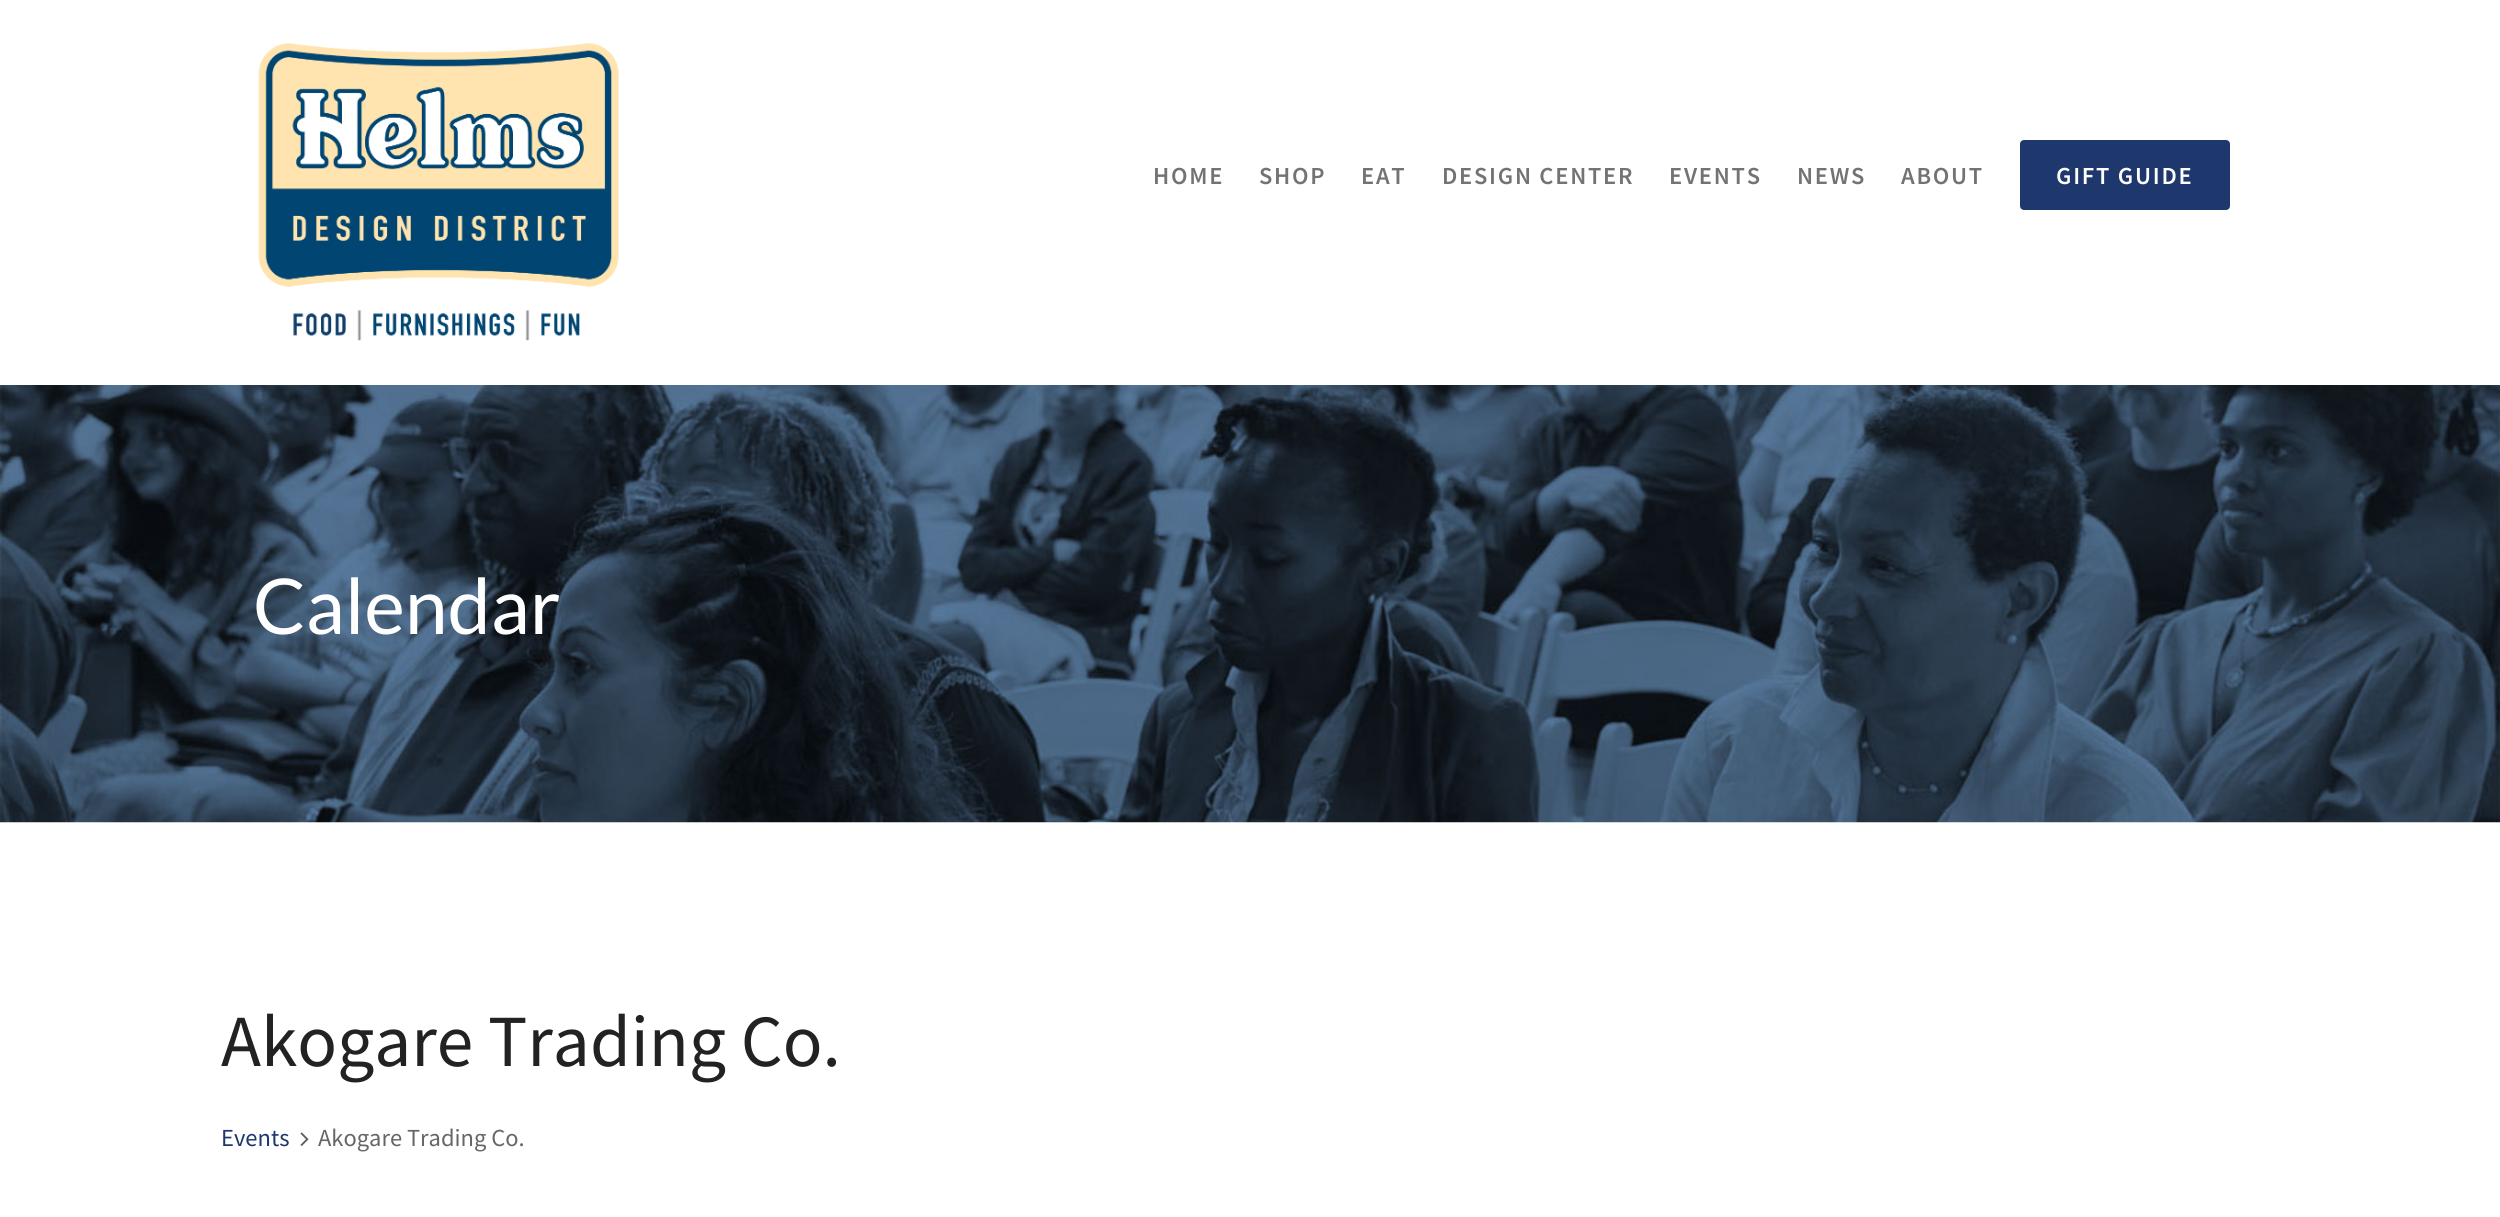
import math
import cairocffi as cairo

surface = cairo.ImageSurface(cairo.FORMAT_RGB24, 2500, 1217)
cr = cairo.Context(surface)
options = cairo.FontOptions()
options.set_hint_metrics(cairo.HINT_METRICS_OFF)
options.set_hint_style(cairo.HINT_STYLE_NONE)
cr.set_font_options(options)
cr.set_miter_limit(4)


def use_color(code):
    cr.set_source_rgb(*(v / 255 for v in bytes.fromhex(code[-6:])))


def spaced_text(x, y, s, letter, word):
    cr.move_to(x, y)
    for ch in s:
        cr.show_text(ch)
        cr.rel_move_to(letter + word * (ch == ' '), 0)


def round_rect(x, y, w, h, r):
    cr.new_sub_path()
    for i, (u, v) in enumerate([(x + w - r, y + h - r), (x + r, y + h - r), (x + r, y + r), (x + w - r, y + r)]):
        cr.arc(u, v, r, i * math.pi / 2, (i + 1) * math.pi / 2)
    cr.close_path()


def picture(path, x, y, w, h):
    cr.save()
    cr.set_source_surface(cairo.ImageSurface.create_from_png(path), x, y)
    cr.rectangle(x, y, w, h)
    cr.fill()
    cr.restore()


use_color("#ffffff")
cr.paint()
picture("img1.png", 258, 43, 361, 298)
cr.select_font_face("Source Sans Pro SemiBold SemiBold")
cr.set_font_size(24.5)
use_color("#717375")
spaced_text(1153, 184, "HOME", 1.75, 0)
spaced_text(1259, 184, "SHOP", 1.75, 0)
spaced_text(1361, 184, "EAT", 1.75, 0)
spaced_text(1442, 184, "DESIGN CENTER", 1.75, 0)
spaced_text(1669, 184, "EVENTS", 1.75, 0)
spaced_text(1797, 184, "NEWS", 1.75, 0)
spaced_text(1901, 184, "ABOUT", 1.75, 0)
use_color("#1e376d")
round_rect(2021, 141, 208, 68, 3)
cr.fill_preserve()
cr.stroke()
use_color("#ffffff")
spaced_text(2056, 184, "GIFT GUIDE", 1.75, 0)
picture("img2.png", 0, 385, 2500, 438)
cr.select_font_face("Lato")
cr.set_font_size(77)
cr.move_to(253, 634)
cr.show_text("Calendar")
cr.select_font_face("Source Sans Pro")
cr.set_font_size(73.5)
use_color("#222222")
cr.move_to(221, 1066)
cr.show_text("Akogare Trading Co.")
cr.set_font_size(24.5)
use_color("#1e376d")
cr.move_to(221, 1146)
cr.show_text("Events")
picture("img3.png", 300, 1132, 9, 14)
use_color("#666666")
cr.move_to(318, 1146)
cr.show_text("Akogare Trading Co.")
surface.write_to_png("result.png")
